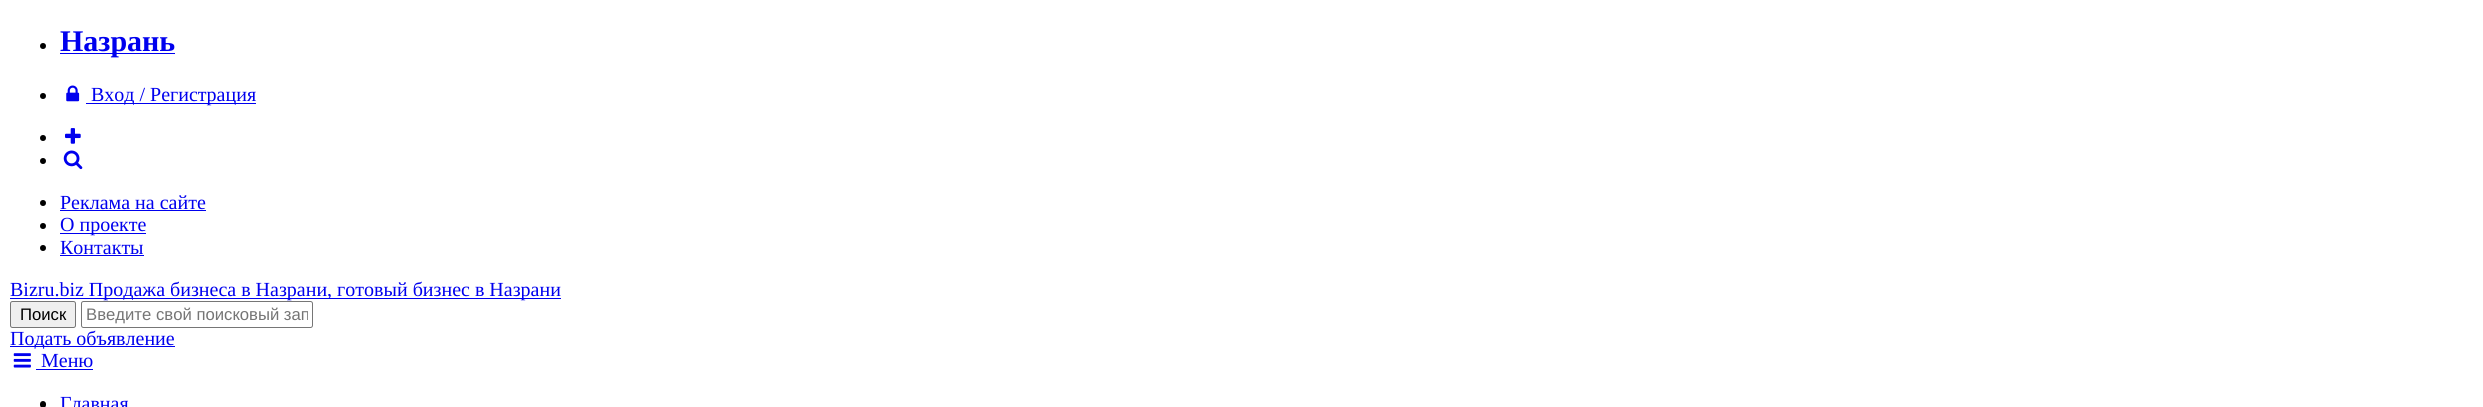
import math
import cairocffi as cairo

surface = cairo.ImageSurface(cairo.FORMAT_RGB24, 2483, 407)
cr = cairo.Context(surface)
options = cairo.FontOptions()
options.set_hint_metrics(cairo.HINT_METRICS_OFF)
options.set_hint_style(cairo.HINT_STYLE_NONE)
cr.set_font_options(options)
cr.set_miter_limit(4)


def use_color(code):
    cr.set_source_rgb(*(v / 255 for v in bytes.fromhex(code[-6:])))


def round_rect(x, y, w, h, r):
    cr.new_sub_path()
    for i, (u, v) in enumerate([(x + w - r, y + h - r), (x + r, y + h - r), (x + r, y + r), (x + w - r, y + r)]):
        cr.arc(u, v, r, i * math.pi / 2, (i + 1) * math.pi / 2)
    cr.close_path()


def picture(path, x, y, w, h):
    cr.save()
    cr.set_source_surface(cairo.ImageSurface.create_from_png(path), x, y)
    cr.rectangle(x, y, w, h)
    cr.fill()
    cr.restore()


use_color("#ffffff")
cr.paint()
use_color("#000000")
cr.arc(43, 46, 3, 0, 2 * math.pi)
cr.fill()
use_color("#0000ee")
cr.rectangle(60, 53, 115, 1)
cr.fill()
cr.select_font_face("Liberation Serif", cairo.FONT_SLANT_NORMAL, cairo.FONT_WEIGHT_BOLD)
cr.set_font_size(30)
cr.move_to(60, 51)
cr.show_text("Назрань")
use_color("#000000")
cr.new_path()
cr.arc(43, 96, 3, 0, 2 * math.pi)
cr.fill()
picture("img1.png", 66, 85, 14, 17)
use_color("#0000ee")
cr.rectangle(86, 103, 170, 1)
cr.fill()
cr.select_font_face("Liberation Serif")
cr.set_font_size(20)
cr.move_to(91, 101)
cr.show_text("Вход / Регистрация")
use_color("#000000")
cr.new_path()
cr.arc(43, 138, 3, 0, 2 * math.pi)
cr.fill()
picture("img2.png", 65, 128, 16, 16)
cr.arc(43, 161, 3, 0, 2 * math.pi)
cr.fill()
picture("img3.png", 63, 150, 20, 20)
cr.arc(43, 203, 3, 0, 2 * math.pi)
cr.fill()
use_color("#0000ee")
cr.move_to(60, 209)
cr.show_text("Реклама на сайте")
cr.rectangle(60, 210, 146, 1)
cr.fill()
use_color("#000000")
cr.arc(43, 226, 3, 0, 2 * math.pi)
cr.fill()
use_color("#0000ee")
cr.rectangle(60, 233, 86, 1)
cr.fill()
cr.move_to(60, 231)
cr.show_text("О проекте")
use_color("#000000")
cr.new_path()
cr.arc(43, 248, 3, 0, 2 * math.pi)
cr.fill()
use_color("#0000ee")
cr.move_to(60, 254)
cr.show_text("Контакты")
cr.rectangle(60, 255, 84, 1)
cr.fill()
cr.rectangle(10, 298, 551, 1)
cr.fill()
cr.move_to(10, 296)
cr.show_text("Bizru.biz Продажа бизнеса в Назрани, готовый бизнес в Назрани")
use_color("#efefef")
round_rect(10.5, 301.5, 65, 26, 2)
cr.fill_preserve()
use_color("#767676")
cr.set_line_width(1)
cr.stroke()
cr.select_font_face("Liberation Sans")
cr.set_font_size(16.7)
use_color("#000000")
cr.move_to(20, 320)
cr.show_text("Поиск")
round_rect(81.5, 301.5, 231, 26, 2)
use_color("#767676")
cr.stroke()
cr.save()
cr.rectangle(86, 305, 222, 19)
cr.clip()
use_color("#757575")
cr.move_to(86, 320)
cr.show_text("Введите свой поисковый зап")
cr.restore()
use_color("#0000ee")
cr.rectangle(10, 346, 165, 1)
cr.fill()
cr.select_font_face("Liberation Serif")
cr.set_font_size(20)
cr.move_to(10, 345)
cr.show_text("Подать объявление")
picture("img4.png", 13, 353, 18, 15)
cr.move_to(41, 367)
cr.show_text("Меню")
cr.rectangle(36, 369, 57, 1)
cr.fill()
use_color("#000000")
round_rect(40, 401, 6, 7, 3)
cr.fill()
use_color("#0000ee")
cr.move_to(60, 410)
cr.show_text("Главная")
surface.write_to_png("result.png")
